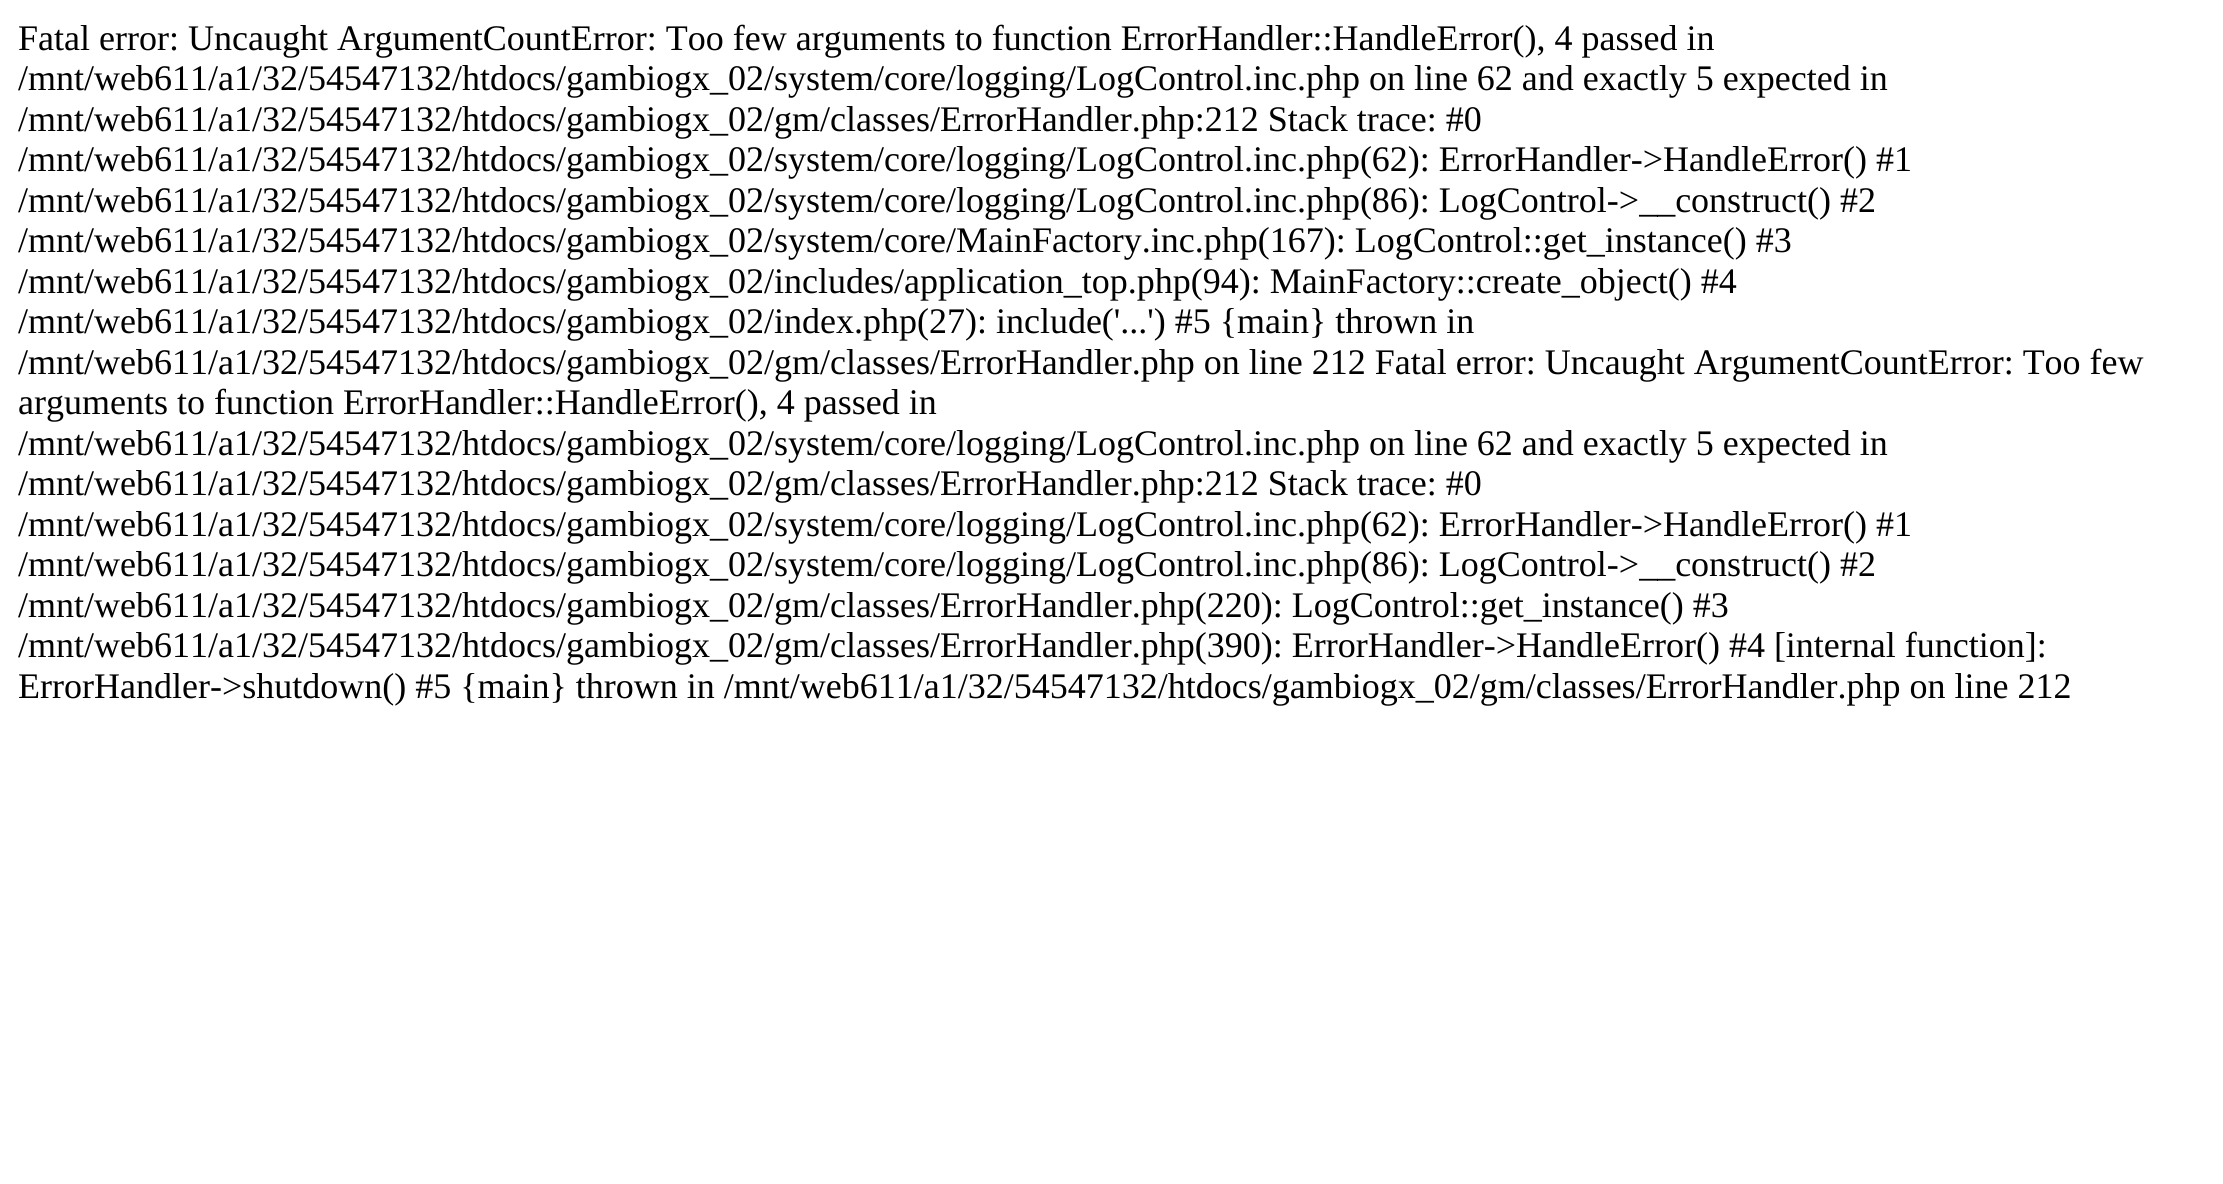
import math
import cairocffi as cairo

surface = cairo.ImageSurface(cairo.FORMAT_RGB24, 2223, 1184)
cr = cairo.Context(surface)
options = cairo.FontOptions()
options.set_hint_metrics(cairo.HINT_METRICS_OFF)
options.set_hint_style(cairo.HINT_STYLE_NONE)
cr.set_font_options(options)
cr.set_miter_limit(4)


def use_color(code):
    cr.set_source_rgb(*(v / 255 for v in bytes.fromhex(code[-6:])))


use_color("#ffffff")
cr.paint()
cr.select_font_face("Liberation Serif")
cr.set_font_size(36)
use_color("#000000")
cr.move_to(18, 50)
cr.show_text("Fatal error: Uncaught ArgumentCountError: Too few arguments to function ErrorHandler::HandleError(), 4 passed in")
cr.move_to(18, 90)
cr.show_text("/mnt/web611/a1/32/54547132/htdocs/gambiogx_02/system/core/logging/LogControl.inc.php on line 62 and exactly 5 expected in")
cr.move_to(18, 131)
cr.show_text("/mnt/web611/a1/32/54547132/htdocs/gambiogx_02/gm/classes/ErrorHandler.php:212 Stack trace: #0")
cr.move_to(18, 171)
cr.show_text("/mnt/web611/a1/32/54547132/htdocs/gambiogx_02/system/core/logging/LogControl.inc.php(62): ErrorHandler->HandleError() #1")
cr.move_to(18, 212)
cr.show_text("/mnt/web611/a1/32/54547132/htdocs/gambiogx_02/system/core/logging/LogControl.inc.php(86): LogControl->__construct() #2")
cr.move_to(18, 252)
cr.show_text("/mnt/web611/a1/32/54547132/htdocs/gambiogx_02/system/core/MainFactory.inc.php(167): LogControl::get_instance() #3")
cr.move_to(18, 293)
cr.show_text("/mnt/web611/a1/32/54547132/htdocs/gambiogx_02/includes/application_top.php(94): MainFactory::create_object() #4")
cr.move_to(18, 333)
cr.show_text("/mnt/web611/a1/32/54547132/htdocs/gambiogx_02/index.php(27): include('...') #5 {main} thrown in")
cr.move_to(18, 374)
cr.show_text("/mnt/web611/a1/32/54547132/htdocs/gambiogx_02/gm/classes/ErrorHandler.php on line 212 Fatal error: Uncaught ArgumentCountError: Too few")
cr.move_to(18, 414)
cr.show_text("arguments to function ErrorHandler::HandleError(), 4 passed in")
cr.move_to(18, 455)
cr.show_text("/mnt/web611/a1/32/54547132/htdocs/gambiogx_02/system/core/logging/LogControl.inc.php on line 62 and exactly 5 expected in")
cr.move_to(18, 495)
cr.show_text("/mnt/web611/a1/32/54547132/htdocs/gambiogx_02/gm/classes/ErrorHandler.php:212 Stack trace: #0")
cr.move_to(18, 536)
cr.show_text("/mnt/web611/a1/32/54547132/htdocs/gambiogx_02/system/core/logging/LogControl.inc.php(62): ErrorHandler->HandleError() #1")
cr.move_to(18, 576)
cr.show_text("/mnt/web611/a1/32/54547132/htdocs/gambiogx_02/system/core/logging/LogControl.inc.php(86): LogControl->__construct() #2")
cr.move_to(18, 617)
cr.show_text("/mnt/web611/a1/32/54547132/htdocs/gambiogx_02/gm/classes/ErrorHandler.php(220): LogControl::get_instance() #3")
cr.move_to(18, 657)
cr.show_text("/mnt/web611/a1/32/54547132/htdocs/gambiogx_02/gm/classes/ErrorHandler.php(390): ErrorHandler->HandleError() #4 [internal function]:")
cr.move_to(18, 698)
cr.show_text("ErrorHandler->shutdown() #5 {main} thrown in /mnt/web611/a1/32/54547132/htdocs/gambiogx_02/gm/classes/ErrorHandler.php on line 212")
surface.write_to_png("result.png")
